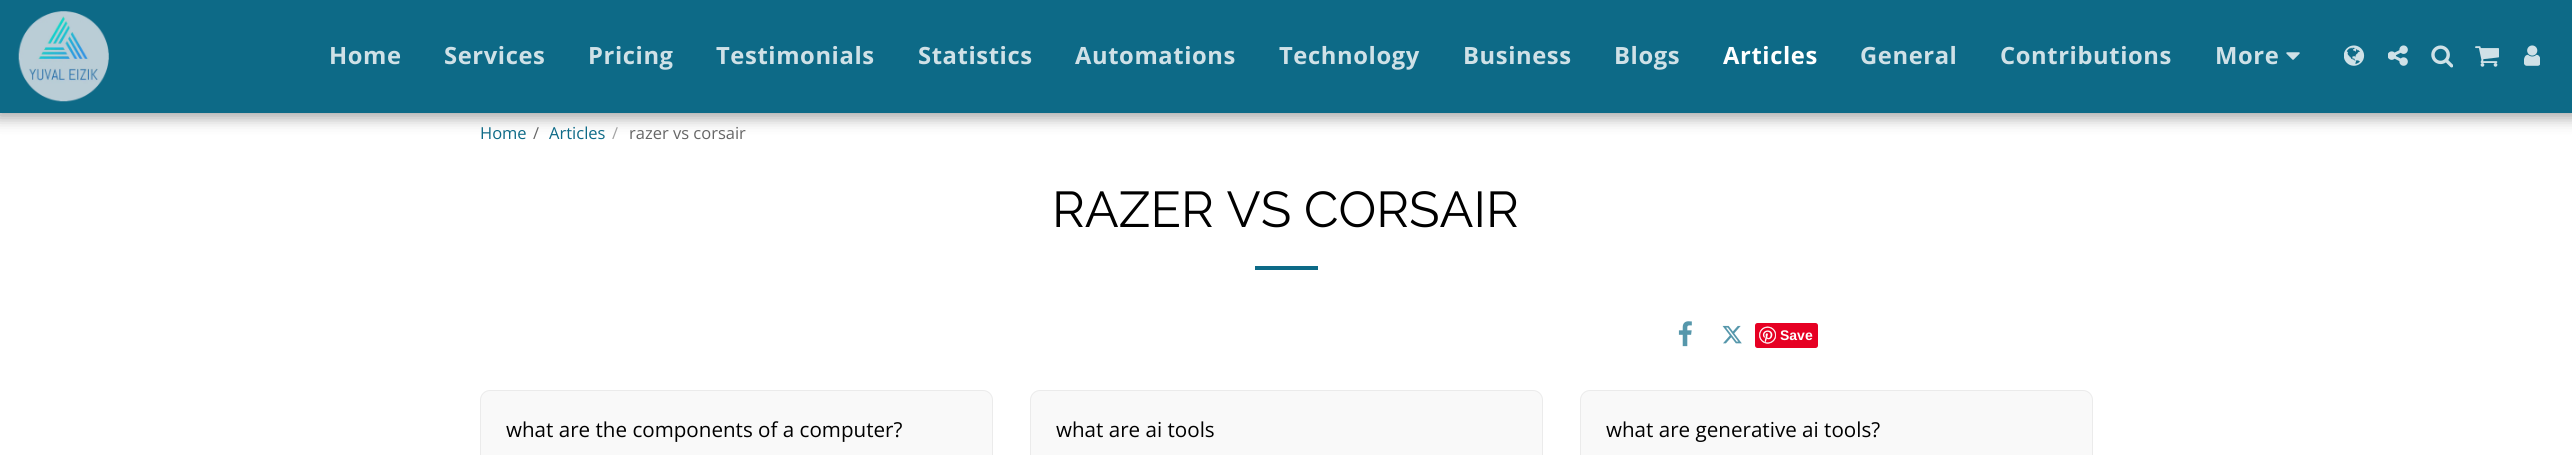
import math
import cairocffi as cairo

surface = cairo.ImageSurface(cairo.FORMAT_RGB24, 2572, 455)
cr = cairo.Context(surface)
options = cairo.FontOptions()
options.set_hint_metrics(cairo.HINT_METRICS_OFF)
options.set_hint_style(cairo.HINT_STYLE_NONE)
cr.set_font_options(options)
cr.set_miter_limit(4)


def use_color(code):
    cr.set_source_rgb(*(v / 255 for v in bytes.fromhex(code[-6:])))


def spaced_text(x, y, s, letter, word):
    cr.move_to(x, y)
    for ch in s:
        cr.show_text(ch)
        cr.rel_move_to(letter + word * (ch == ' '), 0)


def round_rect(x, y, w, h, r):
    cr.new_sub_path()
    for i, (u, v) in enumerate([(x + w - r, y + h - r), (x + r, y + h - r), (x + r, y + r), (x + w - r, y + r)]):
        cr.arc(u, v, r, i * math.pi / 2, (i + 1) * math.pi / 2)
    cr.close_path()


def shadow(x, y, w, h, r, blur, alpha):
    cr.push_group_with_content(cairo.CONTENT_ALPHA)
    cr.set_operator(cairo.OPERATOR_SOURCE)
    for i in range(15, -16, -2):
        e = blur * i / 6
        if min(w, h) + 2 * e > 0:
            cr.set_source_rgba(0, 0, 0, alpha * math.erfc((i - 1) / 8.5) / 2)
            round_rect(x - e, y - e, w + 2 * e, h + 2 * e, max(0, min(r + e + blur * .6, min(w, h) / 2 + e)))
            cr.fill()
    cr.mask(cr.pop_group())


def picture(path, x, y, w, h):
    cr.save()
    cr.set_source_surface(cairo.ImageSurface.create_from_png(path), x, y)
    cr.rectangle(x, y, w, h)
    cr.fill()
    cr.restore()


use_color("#ffffff")
cr.paint()
use_color("#000000")
shadow(-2, 0, 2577, 118, 0, 7.5, 0.35)
use_color("#0d6a87")
cr.rectangle(0, 0, 2572, 113)
cr.fill()
picture("img1.png", 18, 11, 91, 91)
cr.select_font_face("Open Sans", cairo.FONT_SLANT_NORMAL, cairo.FONT_WEIGHT_BOLD)
cr.set_font_size(23.75)
use_color("#cfe1e7")
spaced_text(329, 64, "Home", 0.6, 0)
spaced_text(444, 64, "Services", 0.6, 0)
spaced_text(588, 64, "Pricing", 0.6, 0)
spaced_text(716, 64, "Testimonials", 0.6, 0)
spaced_text(918, 64, "Statistics", 0.6, 0)
spaced_text(1075, 64, "Automations", 0.6, 0)
spaced_text(1279, 64, "Technology", 0.6, 0)
spaced_text(1463, 64, "Business", 0.6, 0)
spaced_text(1614, 64, "Blogs", 0.6, 0)
use_color("#ffffff")
spaced_text(1723, 64, "Articles", 0.6, 0)
use_color("#cfe1e7")
spaced_text(1860, 64, "General", 0.6, 0)
spaced_text(2000, 64, "Contributions", 0.6, 0)
spaced_text(2215, 64, "More", 0.6, 0)
picture("img2.png", 2286, 52, 14, 8)
picture("img3.png", 2344, 45, 21, 21)
picture("img4.png", 2388, 45, 20, 21)
picture("img5.png", 2431, 45, 22, 23)
picture("img6.png", 2475, 46, 24, 21)
picture("img7.png", 2524, 45, 16, 21)
cr.select_font_face("Open Sans")
cr.set_font_size(16.5)
use_color("#0d6a87")
cr.move_to(480, 139)
cr.show_text("Home")
use_color("#666666")
cr.move_to(533, 139)
cr.show_text("/")
use_color("#0d6a87")
cr.move_to(549, 139)
cr.show_text("Articles")
use_color("#a3a3a3")
cr.move_to(612, 139)
cr.show_text("/")
use_color("#666666")
cr.move_to(629, 139)
cr.show_text("razer vs corsair")
cr.select_font_face("Raleway")
cr.set_font_size(50.25)
use_color("#000000")
cr.move_to(1052, 227)
cr.show_text("RAZER VS CORSAIR")
use_color("#0d6a87")
cr.rectangle(1255, 266, 63, 4)
cr.fill()
picture("img8.png", 1678, 321, 14, 26)
picture("img9.png", 1722, 325, 20, 19)
use_color("#e60023")
round_rect(1755, 323, 63, 25, 2.5)
cr.fill()
picture("img10.png", 1759, 326, 17, 18)
cr.select_font_face("Liberation Sans", cairo.FONT_SLANT_NORMAL, cairo.FONT_WEIGHT_BOLD)
cr.set_font_size(14)
use_color("#ffffff")
cr.move_to(1780, 340)
cr.show_text("Save")
use_color("#f9f9f9")
round_rect(480.5, 390.5, 512, 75, 9.5)
cr.fill_preserve()
use_color("#ebebeb")
cr.set_line_width(1)
cr.stroke()
cr.select_font_face("Open Sans")
cr.set_font_size(20.6)
use_color("#000000")
cr.move_to(506, 437)
cr.show_text("what are the components of a computer?")
use_color("#f9f9f9")
round_rect(1030.5, 390.5, 512, 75, 9.5)
cr.fill_preserve()
use_color("#ebebeb")
cr.stroke()
use_color("#000000")
cr.move_to(1056, 437)
cr.show_text("what are ai tools")
use_color("#f9f9f9")
round_rect(1580.5, 390.5, 512, 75, 9.5)
cr.fill_preserve()
use_color("#ebebeb")
cr.stroke()
use_color("#000000")
cr.move_to(1606, 437)
cr.show_text("what are generative ai tools?")
surface.write_to_png("result.png")
